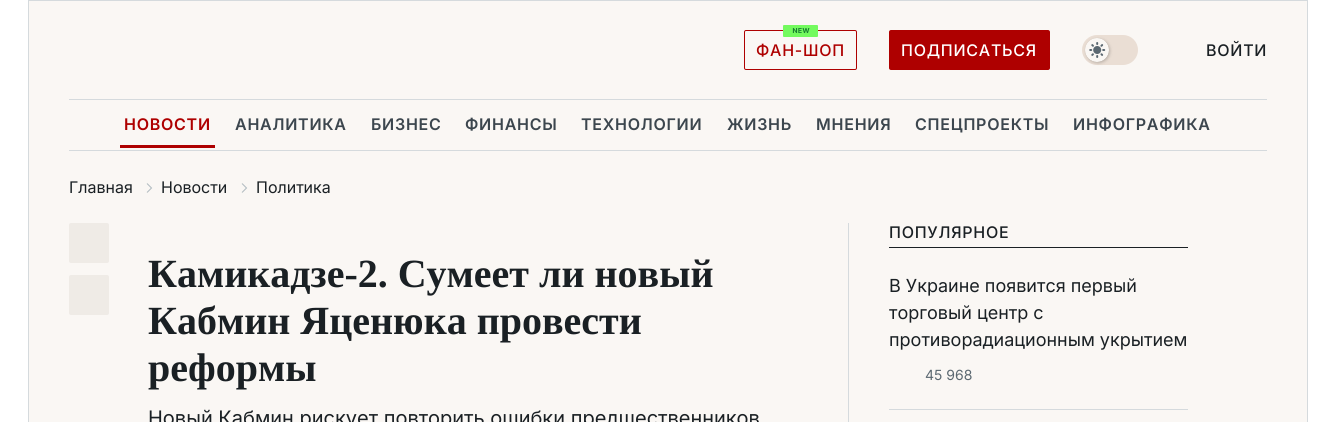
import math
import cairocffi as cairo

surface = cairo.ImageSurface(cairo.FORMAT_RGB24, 1336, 422)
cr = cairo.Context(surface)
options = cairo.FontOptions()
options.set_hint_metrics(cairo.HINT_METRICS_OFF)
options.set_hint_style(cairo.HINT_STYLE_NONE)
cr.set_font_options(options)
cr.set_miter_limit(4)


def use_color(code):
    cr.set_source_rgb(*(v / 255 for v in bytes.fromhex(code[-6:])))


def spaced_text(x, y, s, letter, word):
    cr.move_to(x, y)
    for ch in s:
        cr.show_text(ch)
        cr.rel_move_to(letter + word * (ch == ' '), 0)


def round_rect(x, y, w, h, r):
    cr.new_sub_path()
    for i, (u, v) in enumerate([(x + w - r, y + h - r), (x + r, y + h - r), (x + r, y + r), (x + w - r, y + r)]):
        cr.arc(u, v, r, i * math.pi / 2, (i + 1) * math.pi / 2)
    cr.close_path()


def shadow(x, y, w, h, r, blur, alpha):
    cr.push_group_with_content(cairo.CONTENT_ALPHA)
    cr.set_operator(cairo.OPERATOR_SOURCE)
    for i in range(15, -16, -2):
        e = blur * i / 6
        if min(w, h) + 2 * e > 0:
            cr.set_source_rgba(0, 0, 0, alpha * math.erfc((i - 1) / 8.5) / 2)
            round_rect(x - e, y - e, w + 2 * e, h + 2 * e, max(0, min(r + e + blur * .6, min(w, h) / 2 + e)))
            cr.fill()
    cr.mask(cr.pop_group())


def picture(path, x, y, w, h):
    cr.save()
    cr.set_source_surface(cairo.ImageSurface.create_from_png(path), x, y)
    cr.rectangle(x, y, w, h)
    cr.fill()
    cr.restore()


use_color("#ffffff")
cr.paint()
use_color("#faf7f4")
cr.rectangle(29, 1, 1278, 421)
cr.fill()
use_color("#d5dadd")
cr.rectangle(28, 0, 1280, 1)
cr.fill()
cr.rectangle(1307, 0, 1, 422)
cr.fill()
cr.rectangle(28, 0, 1, 422)
cr.fill()
cr.rectangle(69, 99, 1198, 1)
cr.fill()
round_rect(744.5, 30.5, 112, 39, 1.5)
use_color("#ae0000")
cr.set_line_width(1)
cr.stroke()
picture("img1.png", 783, 25, 35, 12)
cr.select_font_face("Inter Medium")
cr.set_font_size(16)
spaced_text(756, 56, "ФАН-ШОП", 0.75, 0)
round_rect(889, 30, 161, 40, 2)
cr.fill()
use_color("#ffffff")
spaced_text(901, 56, "ПОДПИСАТЬСЯ", 0.75, 0)
use_color("#eaded4")
round_rect(1082, 35, 56, 30, 15)
cr.fill()
use_color("#000000")
shadow(1086, 39, 24, 24, 12, 1.5, 0.2)
picture("img2.png", 1085, 38, 24, 24)
use_color("#1a2024")
spaced_text(1206, 56, "ВОЙТИ", 0.75, 0)
use_color("#d5dadd")
cr.rectangle(69, 150, 1198, 1)
cr.fill()
cr.select_font_face("Inter SemiBold")
use_color("#ae0000")
spaced_text(124, 130, "НОВОСТИ", 0.75, 0)
cr.rectangle(120, 145, 95, 3)
cr.fill()
use_color("#3c464e")
spaced_text(235, 130, "АНАЛИТИКА", 0.75, 0)
spaced_text(371, 130, "БИЗНЕС", 0.75, 0)
spaced_text(465, 130, "ФИНАНСЫ", 0.75, 0)
spaced_text(581, 130, "ТЕХНОЛОГИИ", 0.75, 0)
spaced_text(727, 130, "ЖИЗНЬ", 0.75, 0)
spaced_text(816, 130, "МНЕНИЯ", 0.75, 0)
spaced_text(915, 130, "СПЕЦПРОЕКТЫ", 0.75, 0)
spaced_text(1073, 130, "ИНФОГРАФИКА", 0.75, 0)
cr.select_font_face("Inter")
use_color("#1a2024")
cr.move_to(69, 193)
cr.show_text("Главная")
cr.new_path()
cr.move_to(147, 183.5)
cr.line_to(151.5, 188)
cr.line_to(147, 192.5)
use_color("#b0babf")
cr.stroke()
use_color("#1a2024")
cr.move_to(161, 193)
cr.show_text("Новости")
cr.new_path()
cr.move_to(242, 183.5)
cr.line_to(246.5, 188)
cr.line_to(242, 192.5)
use_color("#b0babf")
cr.stroke()
use_color("#1a2024")
cr.move_to(256, 193)
cr.show_text("Политика")
use_color("#efebe6")
round_rect(69, 223, 40, 40, 2)
cr.fill()
round_rect(69, 275, 40, 40, 2)
cr.fill()
cr.select_font_face("Tinos", cairo.FONT_SLANT_NORMAL, cairo.FONT_WEIGHT_BOLD)
cr.set_font_size(40)
use_color("#1a2024")
cr.move_to(148, 287)
cr.show_text("Камикадзе-2. Сумеет ли новый")
cr.move_to(148, 334)
cr.show_text("Кабмин Яценюка провести")
cr.move_to(148, 381)
cr.show_text("реформы")
cr.select_font_face("Inter")
cr.set_font_size(20)
cr.move_to(148, 425)
cr.show_text("Новый Кабмин рискует повторить ошибки предшественников")
use_color("#d5dadd")
cr.rectangle(848, 223, 1, 199)
cr.fill()
use_color("#1a2024")
cr.rectangle(889, 247, 299, 1)
cr.fill()
cr.select_font_face("Inter Medium")
cr.set_font_size(16)
spaced_text(889, 238, "ПОПУЛЯРНОЕ", 0.75, 0)
use_color("#d5dadd")
cr.rectangle(889, 409, 299, 1)
cr.fill()
cr.select_font_face("Inter")
cr.set_font_size(18)
use_color("#1a2024")
cr.move_to(889, 292)
cr.show_text("В Украине появится первый")
cr.move_to(889, 319)
cr.show_text("торговый центр с")
cr.move_to(889, 346)
cr.show_text("противорадиационным укрытием")
cr.set_font_size(14)
use_color("#5b6871")
cr.move_to(925, 380)
cr.show_text("45 968")
surface.write_to_png("result.png")
